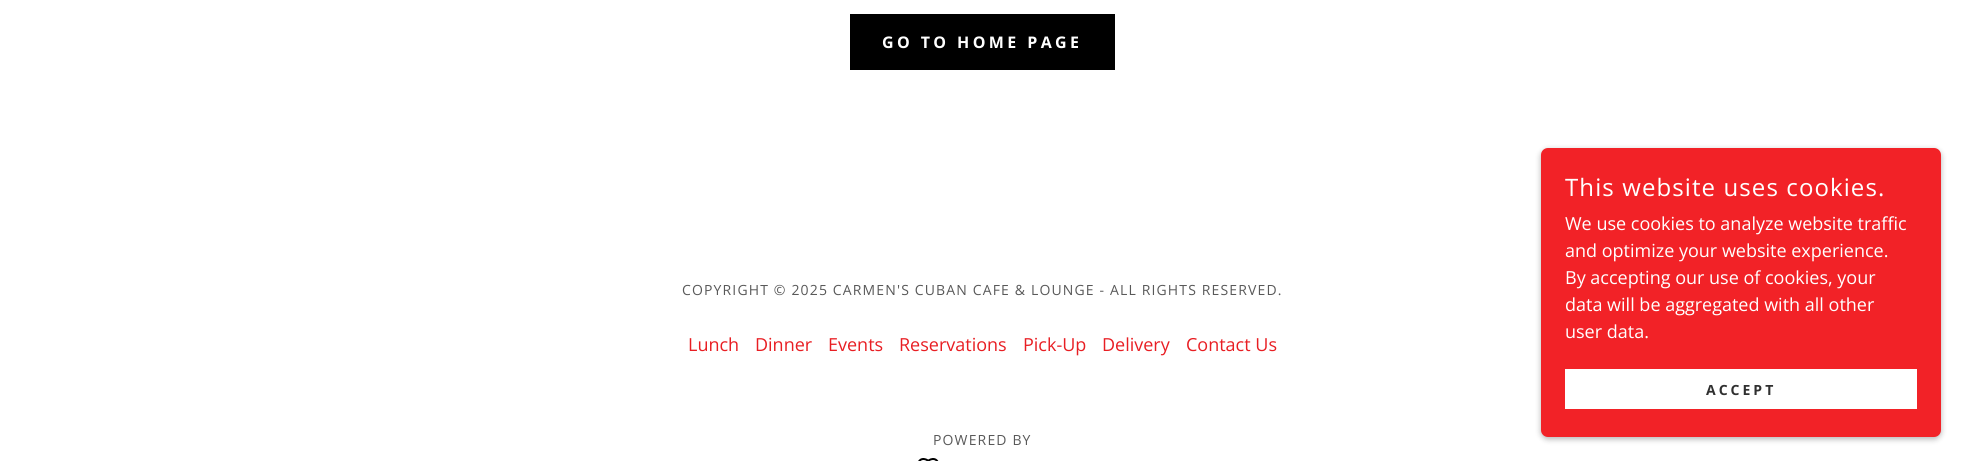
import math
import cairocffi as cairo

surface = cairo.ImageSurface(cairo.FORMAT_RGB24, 1965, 461)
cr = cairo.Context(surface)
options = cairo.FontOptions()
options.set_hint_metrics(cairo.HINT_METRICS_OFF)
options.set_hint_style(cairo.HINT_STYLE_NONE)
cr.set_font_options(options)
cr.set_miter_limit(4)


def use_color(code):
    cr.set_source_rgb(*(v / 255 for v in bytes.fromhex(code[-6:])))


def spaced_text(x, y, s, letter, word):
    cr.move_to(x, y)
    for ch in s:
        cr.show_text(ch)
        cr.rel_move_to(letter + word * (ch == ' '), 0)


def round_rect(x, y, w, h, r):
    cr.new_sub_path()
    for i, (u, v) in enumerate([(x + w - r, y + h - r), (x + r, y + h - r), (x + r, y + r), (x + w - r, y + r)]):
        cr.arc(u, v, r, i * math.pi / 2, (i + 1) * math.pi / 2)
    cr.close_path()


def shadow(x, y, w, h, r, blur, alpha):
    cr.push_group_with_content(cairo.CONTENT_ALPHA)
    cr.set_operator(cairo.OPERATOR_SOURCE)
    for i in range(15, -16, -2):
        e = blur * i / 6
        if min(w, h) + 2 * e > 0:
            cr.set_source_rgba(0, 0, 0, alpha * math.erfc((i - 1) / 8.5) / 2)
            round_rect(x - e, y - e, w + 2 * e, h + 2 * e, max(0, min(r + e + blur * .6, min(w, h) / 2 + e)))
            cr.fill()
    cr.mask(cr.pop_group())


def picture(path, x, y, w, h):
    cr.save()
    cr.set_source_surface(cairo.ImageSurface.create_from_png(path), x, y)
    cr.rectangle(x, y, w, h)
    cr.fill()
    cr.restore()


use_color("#ffffff")
cr.paint()
use_color("#000000")
cr.rectangle(850, 14, 265, 56)
cr.fill()
cr.select_font_face("Open Sans", cairo.FONT_SLANT_NORMAL, cairo.FONT_WEIGHT_BOLD)
cr.set_font_size(16)
use_color("#ffffff")
spaced_text(882, 48, "GO TO HOME PAGE", 3.4, 0)
cr.select_font_face("Open Sans")
cr.set_font_size(14)
use_color("#595959")
spaced_text(682, 295, "COPYRIGHT © 2025 CARMEN'S CUBAN CAFE & LOUNGE - ALL RIGHTS RESERVED.", 1.15, 0)
cr.set_font_size(18)
use_color("#e81e23")
cr.move_to(688, 351)
cr.show_text("Lunch")
cr.move_to(755, 351)
cr.show_text("Dinner")
cr.move_to(828, 351)
cr.show_text("Events")
cr.move_to(899, 351)
cr.show_text("Reservations")
cr.move_to(1023, 351)
cr.show_text("Pick-Up")
cr.move_to(1102, 351)
cr.show_text("Delivery")
cr.move_to(1186, 351)
cr.show_text("Contact Us")
cr.set_font_size(14)
use_color("#595959")
spaced_text(933, 445, "POWERED BY", 1.15, 0)
picture("img1.png", 918, 458, 21, 3)
use_color("#000000")
shadow(1541, 150, 400, 289, 7, 3, 0.3)
use_color("#f22227")
round_rect(1541, 148, 400, 289, 7)
cr.fill()
cr.set_font_size(24)
use_color("#ffffff")
spaced_text(1565, 196, "This website uses cookies.", 1.1, 0)
cr.set_font_size(18)
cr.move_to(1565, 230)
cr.show_text("We use cookies to analyze website traffic")
cr.move_to(1565, 257)
cr.show_text("and optimize your website experience.")
cr.move_to(1565, 284)
cr.show_text("By accepting our use of cookies, your")
cr.move_to(1565, 311)
cr.show_text("data will be aggregated with all other")
cr.move_to(1565, 338)
cr.show_text("user data.")
cr.rectangle(1565, 369, 352, 40)
cr.fill()
cr.select_font_face("Open Sans", cairo.FONT_SLANT_NORMAL, cairo.FONT_WEIGHT_BOLD)
cr.set_font_size(14)
use_color("#303030")
spaced_text(1706, 395, "ACCEPT", 3, 0)
surface.write_to_png("result.png")
